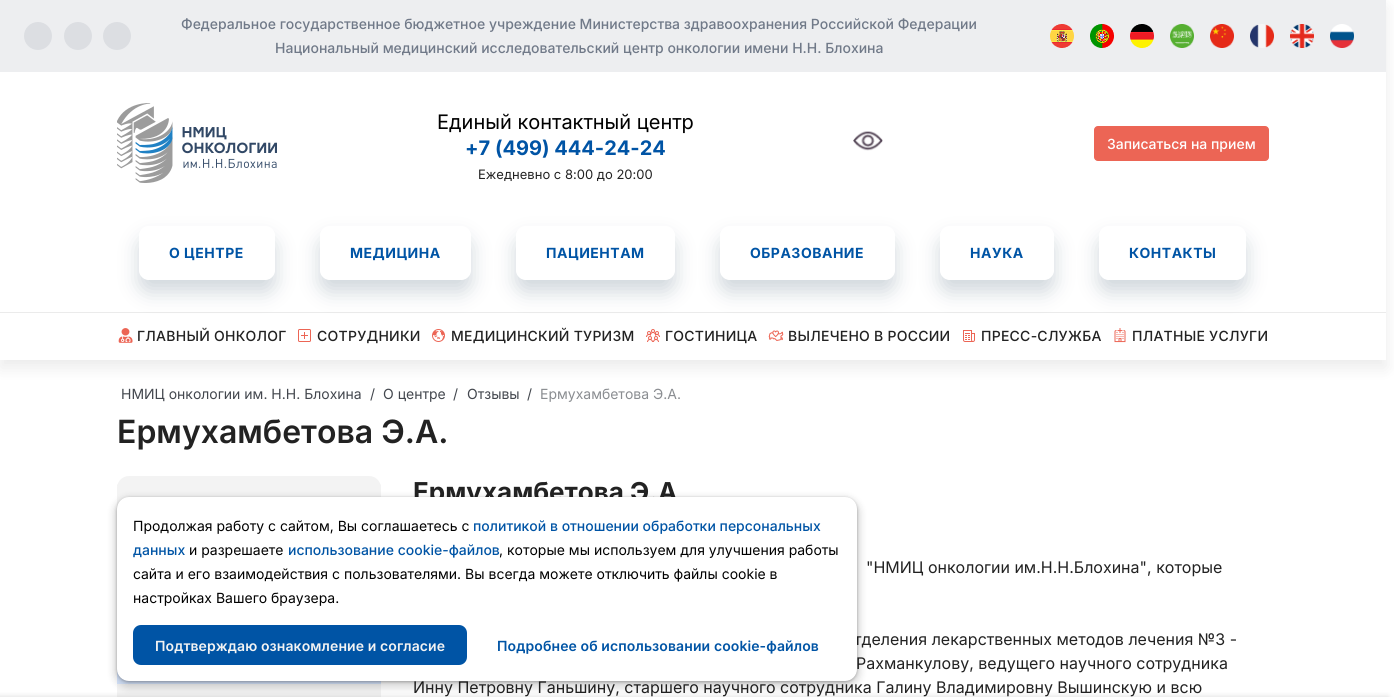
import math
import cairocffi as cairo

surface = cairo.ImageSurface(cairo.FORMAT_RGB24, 1394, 697)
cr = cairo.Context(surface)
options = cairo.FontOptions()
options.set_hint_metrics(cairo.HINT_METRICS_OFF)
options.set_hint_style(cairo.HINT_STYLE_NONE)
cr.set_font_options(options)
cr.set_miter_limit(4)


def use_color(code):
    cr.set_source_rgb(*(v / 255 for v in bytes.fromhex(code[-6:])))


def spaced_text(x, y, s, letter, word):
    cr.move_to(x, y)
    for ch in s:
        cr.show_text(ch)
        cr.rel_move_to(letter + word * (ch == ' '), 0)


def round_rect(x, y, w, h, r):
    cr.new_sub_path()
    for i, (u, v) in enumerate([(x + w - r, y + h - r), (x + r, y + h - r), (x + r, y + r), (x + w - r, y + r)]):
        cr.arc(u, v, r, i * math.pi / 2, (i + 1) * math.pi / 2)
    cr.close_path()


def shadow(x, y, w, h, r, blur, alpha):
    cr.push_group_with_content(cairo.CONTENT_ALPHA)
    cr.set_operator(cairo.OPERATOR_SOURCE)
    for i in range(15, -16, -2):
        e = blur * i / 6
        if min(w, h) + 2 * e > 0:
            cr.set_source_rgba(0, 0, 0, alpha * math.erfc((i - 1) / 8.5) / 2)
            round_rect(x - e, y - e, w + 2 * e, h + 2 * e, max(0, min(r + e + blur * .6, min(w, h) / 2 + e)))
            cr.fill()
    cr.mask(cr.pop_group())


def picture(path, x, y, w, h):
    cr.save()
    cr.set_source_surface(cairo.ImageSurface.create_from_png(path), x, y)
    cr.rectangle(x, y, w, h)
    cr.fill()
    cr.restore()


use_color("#ffffff")
cr.paint()
cr.save()
cr.set_fill_rule(cairo.FILL_RULE_EVEN_ODD)
cr.new_path()
cr.move_to(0, 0)
cr.line_to(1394, 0)
cr.line_to(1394, 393)
cr.line_to(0, 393)
cr.close_path()
cr.move_to(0, 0)
cr.line_to(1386, 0)
cr.line_to(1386, 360)
cr.line_to(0, 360)
cr.close_path()
cr.clip()
use_color("#000000")
shadow(0, 8, 1386, 360, 0, 8, 0.08)
cr.restore()
use_color("#edeef0")
cr.rectangle(0, 0, 1386, 72)
cr.fill()
use_color("#dcdee2")
cr.arc(38, 36, 14, 0, 2 * math.pi)
cr.fill()
cr.arc(78, 36, 14, 0, 2 * math.pi)
cr.fill()
cr.arc(117, 36, 14, 0, 2 * math.pi)
cr.fill()
cr.select_font_face("Inter Medium")
cr.set_font_size(14)
use_color("#707988")
cr.move_to(181, 29)
cr.show_text("Федеральное государственное бюджетное учреждение Министерства здравоохранения Российской Федерации")
cr.move_to(275, 53)
cr.show_text("Национальный медицинский исследовательский центр онкологии имени Н.Н. Блохина")
picture("img1.png", 1050, 24, 24, 24)
picture("img2.png", 1090, 24, 24, 24)
picture("img3.png", 1130, 24, 24, 24)
picture("img4.png", 1170, 24, 24, 24)
picture("img5.png", 1210, 24, 24, 24)
picture("img6.png", 1250, 24, 24, 24)
picture("img7.png", 1290, 24, 24, 24)
picture("img8.png", 1330, 24, 24, 24)
picture("img9.png", 117, 103, 160, 80)
cr.select_font_face("Inter")
cr.set_font_size(20)
use_color("#000000")
cr.move_to(437, 129)
cr.show_text("Единый контактный центр")
cr.select_font_face("Inter", cairo.FONT_SLANT_NORMAL, cairo.FONT_WEIGHT_BOLD)
use_color("#0054a5")
cr.move_to(465, 155)
cr.show_text("+7 (499) 444-24-24")
cr.select_font_face("Inter")
cr.set_font_size(13)
use_color("#222222")
cr.move_to(478, 179)
cr.show_text("Ежедневно с 8:00 до 20:00")
picture("img10.png", 853, 131, 30, 20)
use_color("#ec6555")
round_rect(1094.5, 126.5, 174, 34, 3.5)
cr.fill_preserve()
cr.set_line_width(1)
cr.stroke()
cr.select_font_face("Inter Medium")
cr.set_font_size(14)
use_color("#ffffff")
cr.move_to(1107, 149)
cr.show_text("Записаться на прием")
use_color("#ebebeb")
cr.rectangle(0, 312, 1386, 1)
cr.fill()
cr.save()
cr.set_fill_rule(cairo.FILL_RULE_EVEN_ODD)
cr.new_path()
cr.move_to(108, 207)
cr.line_to(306, 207)
cr.line_to(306, 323)
cr.line_to(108, 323)
cr.close_path()
cr.move_to(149, 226)
cr.line_to(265, 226)
cr.curve_to(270.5, 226, 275, 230.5, 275, 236)
cr.line_to(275, 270)
cr.curve_to(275, 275.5, 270.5, 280, 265, 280)
cr.line_to(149, 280)
cr.curve_to(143.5, 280, 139, 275.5, 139, 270)
cr.line_to(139, 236)
cr.curve_to(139, 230.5, 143.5, 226, 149, 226)
cr.close_path()
cr.clip()
use_color("#d1d8dd")
shadow(139, 238, 136, 54, 10, 10, 1)
cr.restore()
cr.select_font_face("Inter", cairo.FONT_SLANT_NORMAL, cairo.FONT_WEIGHT_BOLD)
use_color("#0054a5")
spaced_text(169, 258, "О ЦЕНТРЕ", 0.5, 0)
cr.save()
cr.set_fill_rule(cairo.FILL_RULE_EVEN_ODD)
cr.new_path()
cr.move_to(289, 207)
cr.line_to(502, 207)
cr.line_to(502, 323)
cr.line_to(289, 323)
cr.close_path()
cr.move_to(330, 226)
cr.line_to(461, 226)
cr.curve_to(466.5, 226, 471, 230.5, 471, 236)
cr.line_to(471, 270)
cr.curve_to(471, 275.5, 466.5, 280, 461, 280)
cr.line_to(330, 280)
cr.curve_to(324.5, 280, 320, 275.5, 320, 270)
cr.line_to(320, 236)
cr.curve_to(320, 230.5, 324.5, 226, 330, 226)
cr.close_path()
cr.clip()
use_color("#d1d8dd")
shadow(320, 238, 151, 54, 10, 10, 1)
cr.restore()
spaced_text(350, 258, "МЕДИЦИНА", 0.5, 0)
cr.save()
cr.set_fill_rule(cairo.FILL_RULE_EVEN_ODD)
cr.new_path()
cr.move_to(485, 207)
cr.line_to(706, 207)
cr.line_to(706, 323)
cr.line_to(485, 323)
cr.close_path()
cr.move_to(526, 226)
cr.line_to(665, 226)
cr.curve_to(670.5, 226, 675, 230.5, 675, 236)
cr.line_to(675, 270)
cr.curve_to(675, 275.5, 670.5, 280, 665, 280)
cr.line_to(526, 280)
cr.curve_to(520.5, 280, 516, 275.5, 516, 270)
cr.line_to(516, 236)
cr.curve_to(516, 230.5, 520.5, 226, 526, 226)
cr.close_path()
cr.clip()
use_color("#d1d8dd")
shadow(516, 238, 159, 54, 10, 10, 1)
cr.restore()
spaced_text(546, 258, "ПАЦИЕНТАМ", 0.5, 0)
cr.save()
cr.set_fill_rule(cairo.FILL_RULE_EVEN_ODD)
cr.new_path()
cr.move_to(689, 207)
cr.line_to(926, 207)
cr.line_to(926, 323)
cr.line_to(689, 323)
cr.close_path()
cr.move_to(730, 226)
cr.line_to(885, 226)
cr.curve_to(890.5, 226, 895, 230.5, 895, 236)
cr.line_to(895, 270)
cr.curve_to(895, 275.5, 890.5, 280, 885, 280)
cr.line_to(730, 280)
cr.curve_to(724.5, 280, 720, 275.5, 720, 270)
cr.line_to(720, 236)
cr.curve_to(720, 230.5, 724.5, 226, 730, 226)
cr.close_path()
cr.clip()
use_color("#d1d8dd")
shadow(720, 238, 175, 54, 10, 10, 1)
cr.restore()
spaced_text(750, 258, "ОБРАЗОВАНИЕ", 0.5, 0)
cr.save()
cr.set_fill_rule(cairo.FILL_RULE_EVEN_ODD)
cr.new_path()
cr.move_to(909, 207)
cr.line_to(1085, 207)
cr.line_to(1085, 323)
cr.line_to(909, 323)
cr.close_path()
cr.move_to(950, 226)
cr.line_to(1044, 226)
cr.curve_to(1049.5, 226, 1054, 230.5, 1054, 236)
cr.line_to(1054, 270)
cr.curve_to(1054, 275.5, 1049.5, 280, 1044, 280)
cr.line_to(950, 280)
cr.curve_to(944.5, 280, 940, 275.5, 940, 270)
cr.line_to(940, 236)
cr.curve_to(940, 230.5, 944.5, 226, 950, 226)
cr.close_path()
cr.clip()
use_color("#d1d8dd")
shadow(940, 238, 114, 54, 10, 10, 1)
cr.restore()
spaced_text(970, 258, "НАУКА", 0.5, 0)
cr.save()
cr.set_fill_rule(cairo.FILL_RULE_EVEN_ODD)
cr.new_path()
cr.move_to(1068, 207)
cr.line_to(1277, 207)
cr.line_to(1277, 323)
cr.line_to(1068, 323)
cr.close_path()
cr.move_to(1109, 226)
cr.line_to(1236, 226)
cr.curve_to(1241.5, 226, 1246, 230.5, 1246, 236)
cr.line_to(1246, 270)
cr.curve_to(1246, 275.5, 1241.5, 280, 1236, 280)
cr.line_to(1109, 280)
cr.curve_to(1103.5, 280, 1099, 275.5, 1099, 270)
cr.line_to(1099, 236)
cr.curve_to(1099, 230.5, 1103.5, 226, 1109, 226)
cr.close_path()
cr.clip()
use_color("#d1d8dd")
shadow(1099, 238, 147, 54, 10, 10, 1)
cr.restore()
spaced_text(1129, 258, "КОНТАКТЫ", 0.5, 0)
picture("img11.png", 118, 328, 15, 15)
cr.select_font_face("Inter Medium")
use_color("#222222")
spaced_text(137, 341, "ГЛАВНЫЙ ОНКОЛОГ", 0.25, 0)
picture("img12.png", 298, 329, 13, 13)
spaced_text(317, 341, "СОТРУДНИКИ", 0.25, 0)
picture("img13.png", 432, 329, 13, 13)
spaced_text(451, 341, "МЕДИЦИНСКИЙ ТУРИЗМ", 0.25, 0)
picture("img14.png", 646, 329, 14, 13)
spaced_text(665, 341, "ГОСТИНИЦА", 0.25, 0)
picture("img15.png", 768, 330, 16, 11)
spaced_text(788, 341, "ВЫЛЕЧЕНО В РОССИИ", 0.25, 0)
picture("img16.png", 963, 330, 12, 12)
spaced_text(981, 341, "ПРЕСС-СЛУЖБА", 0.25, 0)
picture("img17.png", 1114, 328, 12, 15)
spaced_text(1132, 341, "ПЛАТНЫЕ УСЛУГИ", 0.25, 0)
cr.select_font_face("Inter")
use_color("#43474e")
cr.move_to(121, 399)
cr.show_text("НМИЦ онкологии им. Н.Н. Блохина")
cr.move_to(370, 399)
cr.show_text("/")
cr.move_to(383, 399)
cr.show_text("О центре")
cr.move_to(453, 399)
cr.show_text("/")
cr.move_to(467, 399)
cr.show_text("Отзывы")
cr.move_to(527, 399)
cr.show_text("/")
use_color("#8a8d91")
cr.move_to(540, 399)
cr.show_text("Ермухамбетова Э.А.")
cr.select_font_face("Inter SemiBold")
cr.set_font_size(32)
use_color("#222222")
cr.move_to(117, 443)
cr.show_text("Ермухамбетова Э.А.")
use_color("#f3f3f3")
round_rect(117, 476, 264, 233, 12)
cr.fill()
cr.save()
round_rect(117, 476, 264, 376, 12)
cr.clip()
cr.rectangle(117, 484, 264, 25)
cr.fill()
cr.restore()
use_color("#d8e7ff")
cr.rectangle(117, 669, 264, 15)
cr.fill()
cr.select_font_face("Inter", cairo.FONT_SLANT_NORMAL, cairo.FONT_WEIGHT_BOLD)
cr.set_font_size(26)
use_color("#222222")
cr.move_to(413, 501)
cr.show_text("Ермухамбетова Э.А")
cr.select_font_face("Inter")
cr.set_font_size(16)
cr.move_to(866, 573)
cr.show_text("\"НМИЦ онкологии им.Н.Н.Блохина\", которые")
cr.move_to(854, 645)
cr.show_text("тделения лекарственных методов лечения №3 -")
cr.move_to(856, 669)
cr.show_text("Рахманкулову, ведущего научного сотрудника")
cr.move_to(413, 693)
cr.show_text("Инну Петровну Ганьшину, старшего научного сотрудника Галину Владимировну Вышинскую и всю")
use_color("#000000")
shadow(-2, 697, 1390, 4, 0, 3, 0.15)
shadow(114, 498, 746, 190, 15, 4, 0.15)
shadow(117, 498, 740, 184, 12, 1.5, 0.3)
use_color("#ffffff")
round_rect(117, 497, 740, 184, 12)
cr.fill()
cr.set_font_size(14)
use_color("#000000")
cr.move_to(133, 531)
cr.show_text("Продолжая работу с сайтом, Вы соглашаетесь с")
cr.select_font_face("Inter Medium")
use_color("#0054a5")
cr.move_to(473, 531)
cr.show_text("политикой в отношении обработки персональных")
cr.move_to(133, 555)
cr.show_text("данных")
cr.select_font_face("Inter")
use_color("#000000")
cr.move_to(189, 555)
cr.show_text("и разрешаете")
cr.select_font_face("Inter Medium")
use_color("#0054a5")
cr.move_to(288, 555)
cr.show_text("использование cookie-файлов")
cr.select_font_face("Inter")
use_color("#000000")
cr.move_to(499, 555)
cr.show_text(", которые мы используем для улучшения работы")
cr.move_to(133, 579)
cr.show_text("сайта и его взаимодействия с пользователями. Вы всегда можете отключить файлы cookie в")
cr.move_to(133, 603)
cr.show_text("настройках Вашего браузера.")
use_color("#0054a5")
round_rect(133, 625, 334, 40, 8)
cr.fill()
cr.select_font_face("Inter SemiBold")
use_color("#f3f3f3")
spaced_text(155, 651, "Подтверждаю ознакомление и согласие", 0.1, 0)
use_color("#0054a5")
spaced_text(497, 651, "Подробнее об использовании cookie-файлов", 0.1, 0)
surface.write_to_png("result.png")
